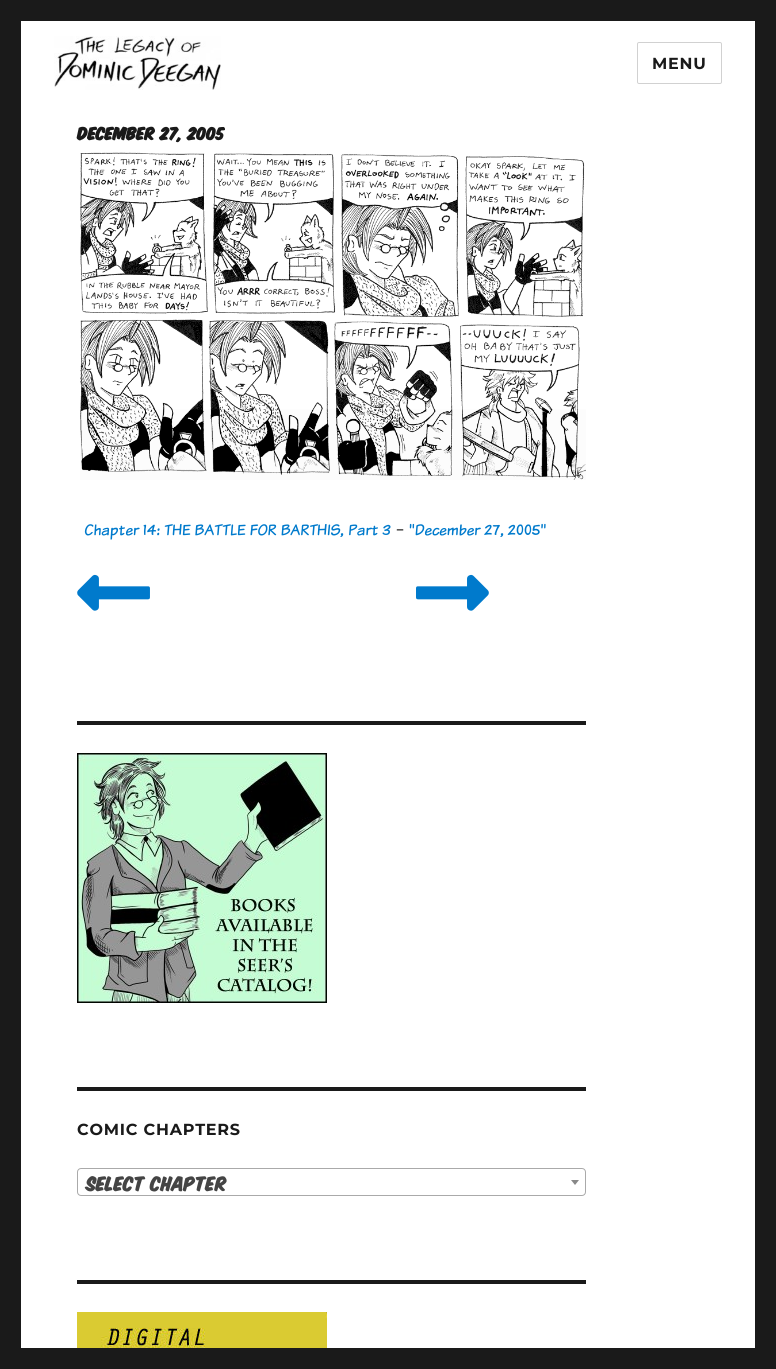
import math
import cairocffi as cairo

surface = cairo.ImageSurface(cairo.FORMAT_RGB24, 776, 1369)
cr = cairo.Context(surface)
options = cairo.FontOptions()
options.set_hint_metrics(cairo.HINT_METRICS_OFF)
options.set_hint_style(cairo.HINT_STYLE_NONE)
cr.set_font_options(options)
cr.set_miter_limit(4)


def use_color(code):
    cr.set_source_rgb(*(v / 255 for v in bytes.fromhex(code[-6:])))


def spaced_text(x, y, s, letter, word):
    cr.move_to(x, y)
    for ch in s:
        cr.show_text(ch)
        cr.rel_move_to(letter + word * (ch == ' '), 0)


def round_rect(x, y, w, h, r):
    cr.new_sub_path()
    for i, (u, v) in enumerate([(x + w - r, y + h - r), (x + r, y + h - r), (x + r, y + r), (x + w - r, y + r)]):
        cr.arc(u, v, r, i * math.pi / 2, (i + 1) * math.pi / 2)
    cr.close_path()


def picture(path, x, y, w, h):
    cr.save()
    cr.set_source_surface(cairo.ImageSurface.create_from_png(path), x, y)
    cr.rectangle(x, y, w, h)
    cr.fill()
    cr.restore()


use_color("#1a1a1a")
cr.paint()
use_color("#ffffff")
cr.rectangle(21, 21, 734, 1327)
cr.fill()
picture("img1.png", 54, 36, 167, 54)
round_rect(637.5, 42.5, 84, 41, 1.5)
use_color("#d1d1d1")
cr.set_line_width(1)
cr.stroke()
cr.select_font_face("Montserrat Thin")
cr.set_font_size(16)
use_color("#1a1a1a")
spaced_text(652, 69, "MENU", 0.75, 0)
cr.select_font_face("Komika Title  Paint", cairo.FONT_SLANT_NORMAL, cairo.FONT_WEIGHT_BOLD)
cr.set_font_size(14)
cr.move_to(77, 140)
cr.show_text("December 27, 2005")
picture("img2.png", 80, 152, 506, 328)
cr.select_font_face("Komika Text")
cr.set_font_size(16)
use_color("#007acc")
cr.move_to(84, 535)
cr.show_text("Chapter 14: THE BATTLE FOR BARTHIS, Part 3")
cr.select_font_face("Merriweather")
use_color("#1a1a1a")
cr.move_to(395, 535)
cr.show_text("-")
cr.select_font_face("Komika Text")
use_color("#007acc")
cr.move_to(409, 535)
cr.show_text("\"December 27, 2005\"")
picture("img3.png", 77, 574, 73, 37)
picture("img4.png", 416, 574, 73, 37)
use_color("#1a1a1a")
cr.rectangle(77, 721, 509, 4)
cr.fill()
picture("img5.png", 77, 753, 250, 250)
cr.rectangle(77, 1087, 509, 4)
cr.fill()
cr.select_font_face("Montserrat Thin")
spaced_text(77, 1135, "COMIC CHAPTERS", 0.75, 0)
round_rect(77.5, 1168.5, 508, 27, 3.5)
use_color("#aaaaaa")
cr.stroke()
cr.select_font_face("Komika Title  Paint")
use_color("#444444")
cr.move_to(86, 1191)
cr.show_text("Select Chapter")
use_color("#888888")
cr.new_path()
cr.move_to(571, 1180)
cr.line_to(579, 1180)
cr.line_to(575, 1185)
cr.close_path()
cr.fill()
use_color("#1a1a1a")
cr.rectangle(77, 1280, 509, 4)
cr.fill()
picture("img6.png", 77, 1312, 250, 36)
surface.write_to_png("result.png")
